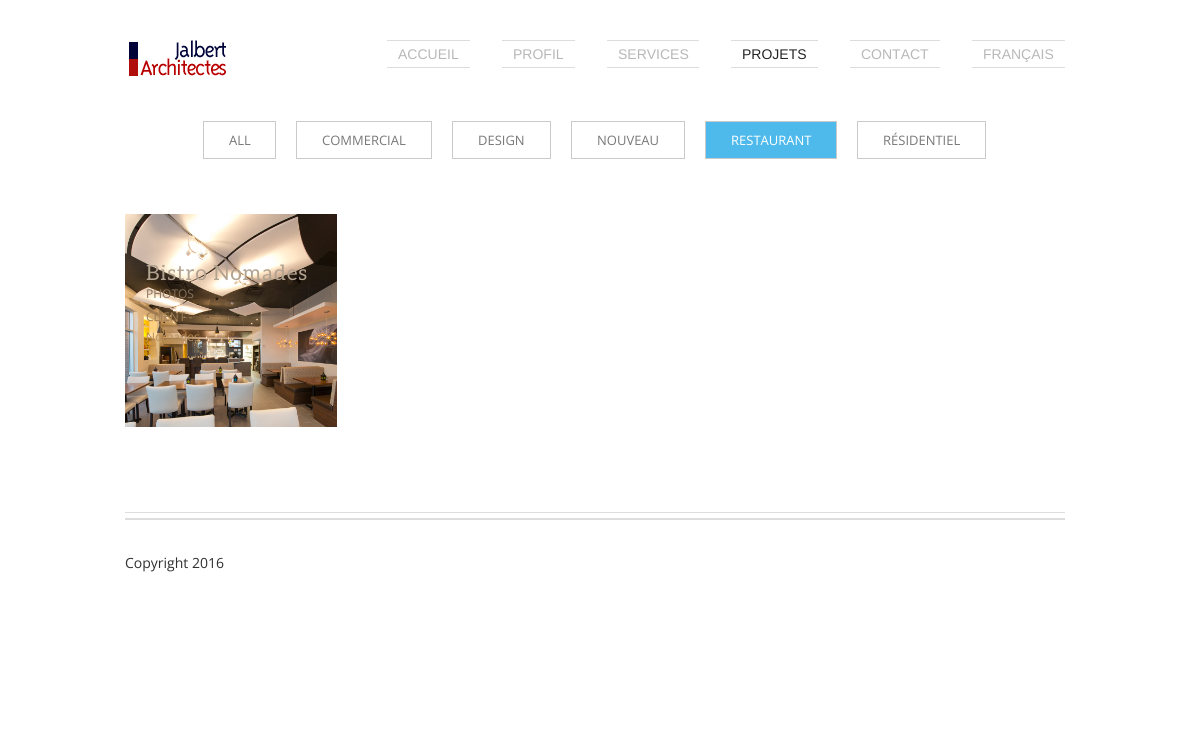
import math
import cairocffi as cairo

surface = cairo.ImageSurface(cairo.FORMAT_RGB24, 1189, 756)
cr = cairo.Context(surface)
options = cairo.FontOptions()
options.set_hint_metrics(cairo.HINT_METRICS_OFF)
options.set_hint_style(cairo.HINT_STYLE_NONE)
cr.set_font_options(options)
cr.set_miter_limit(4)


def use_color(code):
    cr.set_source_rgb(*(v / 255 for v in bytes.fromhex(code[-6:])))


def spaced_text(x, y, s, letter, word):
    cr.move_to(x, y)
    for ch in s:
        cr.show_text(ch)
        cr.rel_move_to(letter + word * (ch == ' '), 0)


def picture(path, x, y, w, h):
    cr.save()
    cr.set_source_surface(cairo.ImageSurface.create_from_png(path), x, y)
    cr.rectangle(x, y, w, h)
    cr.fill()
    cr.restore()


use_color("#ffffff")
cr.paint()
picture("img1.png", 129, 40, 97, 38)
use_color("#dddddd")
cr.rectangle(387, 40, 83, 1)
cr.fill()
cr.select_font_face("Liberation Sans")
cr.set_font_size(14)
use_color("#b8b8b8")
cr.move_to(398, 59)
cr.show_text("ACCUEIL")
use_color("#dddddd")
cr.rectangle(387, 67, 83, 1)
cr.fill()
cr.rectangle(502, 40, 73, 1)
cr.fill()
use_color("#b8b8b8")
cr.move_to(513, 59)
cr.show_text("PROFIL")
use_color("#dddddd")
cr.rectangle(502, 67, 73, 1)
cr.fill()
cr.rectangle(607, 40, 92, 1)
cr.fill()
use_color("#b8b8b8")
cr.move_to(618, 59)
cr.show_text("SERVICES")
use_color("#dddddd")
cr.rectangle(607, 67, 92, 1)
cr.fill()
cr.rectangle(731, 40, 87, 1)
cr.fill()
use_color("#262626")
cr.move_to(742, 59)
cr.show_text("PROJETS")
use_color("#dddddd")
cr.rectangle(731, 67, 87, 1)
cr.fill()
cr.rectangle(850, 40, 90, 1)
cr.fill()
use_color("#b8b8b8")
cr.move_to(861, 59)
cr.show_text("CONTACT")
use_color("#dddddd")
cr.rectangle(850, 67, 90, 1)
cr.fill()
cr.rectangle(972, 40, 93, 1)
cr.fill()
use_color("#b8b8b8")
cr.move_to(983, 59)
cr.show_text("FRANÇAIS")
use_color("#dddddd")
cr.rectangle(972, 67, 93, 1)
cr.fill()
cr.rectangle(203.5, 121.5, 72, 37)
use_color("#cacaca")
cr.set_line_width(1)
cr.stroke()
cr.select_font_face("Open Sans")
cr.set_font_size(13)
use_color("#787878")
cr.move_to(229, 145)
cr.show_text("ALL")
cr.rectangle(296.5, 121.5, 135, 37)
use_color("#cacaca")
cr.stroke()
use_color("#787878")
cr.move_to(322, 145)
cr.show_text("COMMERCIAL")
cr.rectangle(452.5, 121.5, 98, 37)
use_color("#cacaca")
cr.stroke()
use_color("#787878")
cr.move_to(478, 145)
cr.show_text("DESIGN")
cr.rectangle(571.5, 121.5, 113, 37)
use_color("#cacaca")
cr.stroke()
use_color("#787878")
cr.move_to(597, 145)
cr.show_text("NOUVEAU")
use_color("#4eb9eb")
cr.rectangle(705.5, 121.5, 131, 37)
cr.fill_preserve()
use_color("#cacaca")
cr.stroke()
use_color("#ffffff")
cr.move_to(731, 145)
cr.show_text("RESTAURANT")
cr.rectangle(857.5, 121.5, 128, 37)
use_color("#cacaca")
cr.stroke()
use_color("#787878")
cr.move_to(883, 145)
cr.show_text("RÉSIDENTIEL")
picture("img2.png", 125, 214, 212, 213)
cr.select_font_face("Aleo")
cr.set_font_size(21)
use_color("#b2a290")
spaced_text(146, 280, "Bistro Nomades", 1, 0)
cr.select_font_face("Open Sans")
cr.set_font_size(12)
use_color("#85715c")
cr.move_to(146, 298)
cr.show_text("PHOTOS")
use_color("#9f7f54")
cr.move_to(146, 321)
cr.show_text("CLIENT -")
use_color("#b68f5b")
cr.move_to(146, 341)
cr.show_text("Nomades")
picture("img3.png", 125, 512, 940, 8)
cr.set_font_size(14)
use_color("#303030")
cr.move_to(125, 568)
cr.show_text("Copyright 2016")
surface.write_to_png("result.png")
